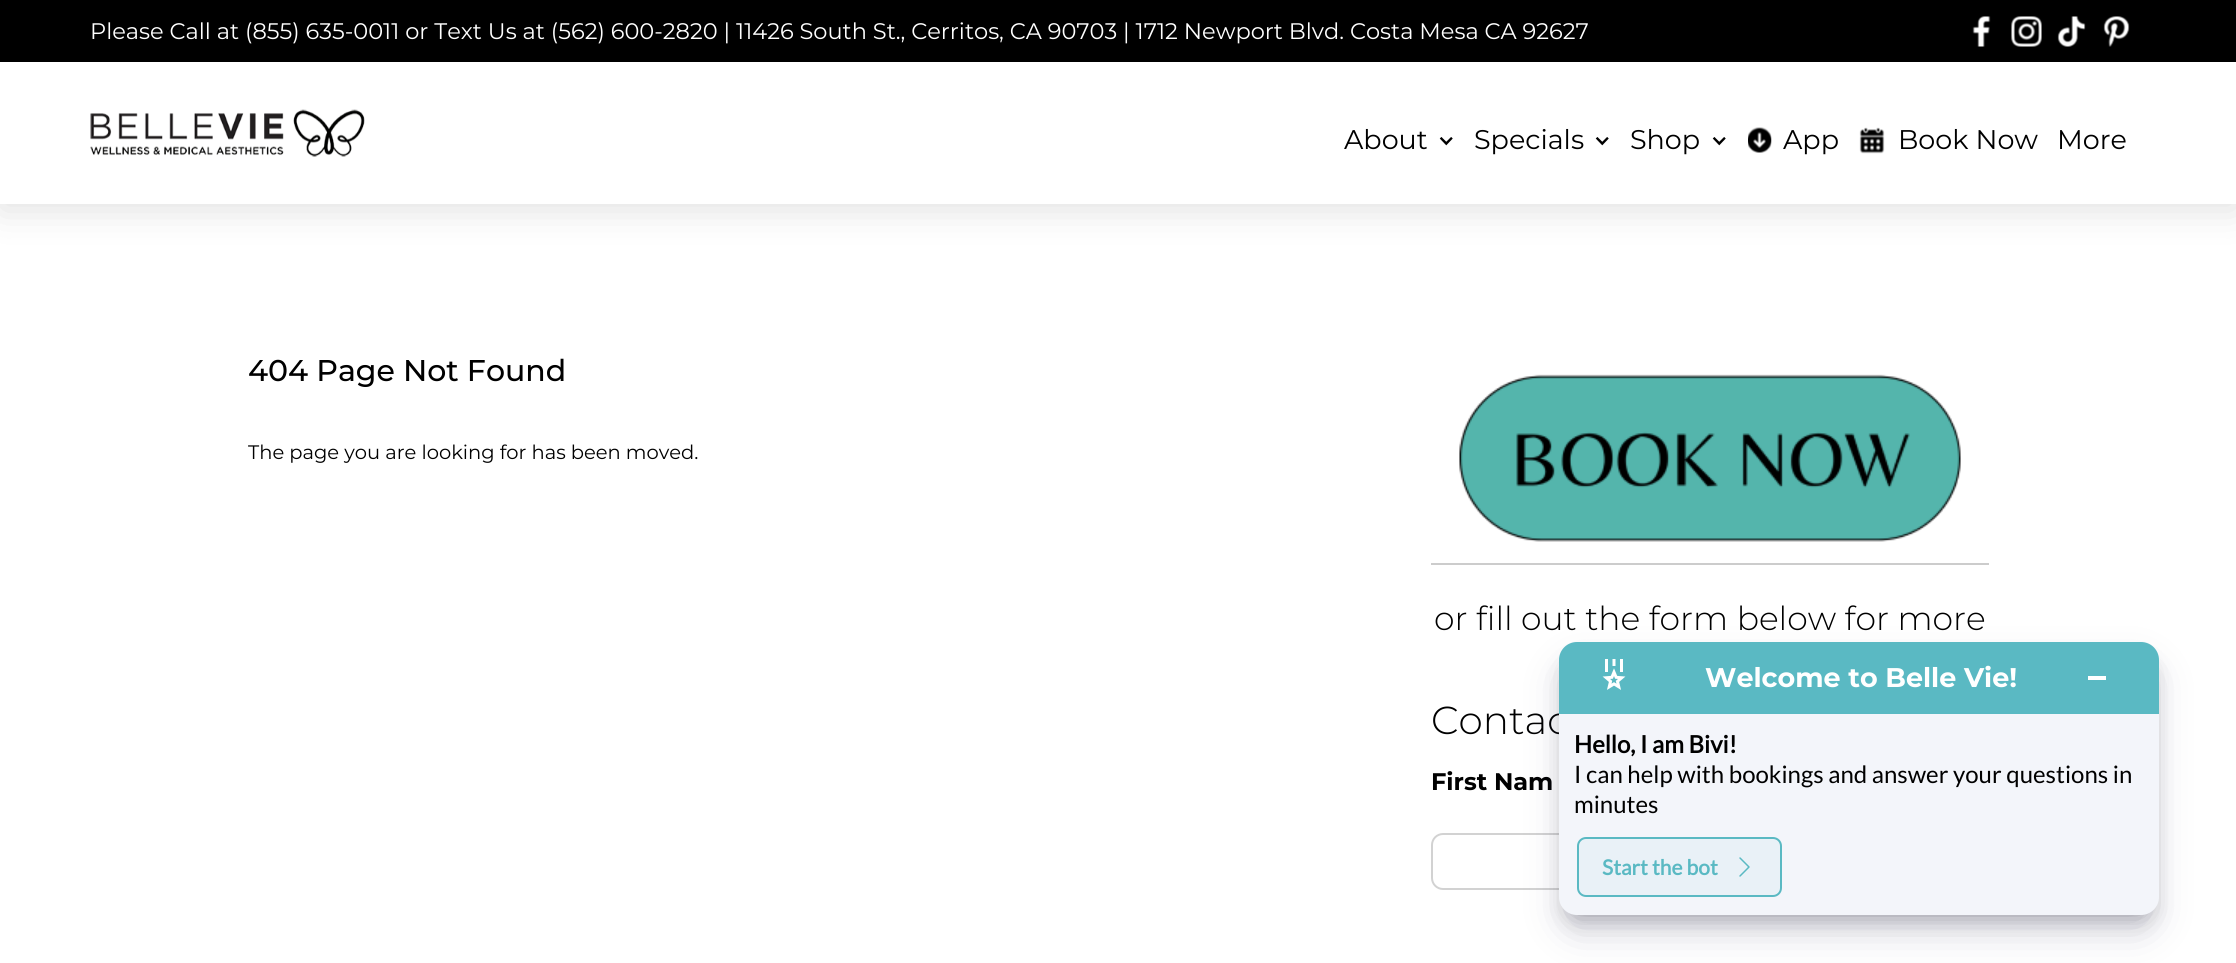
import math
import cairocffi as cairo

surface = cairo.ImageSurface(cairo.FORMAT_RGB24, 2236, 963)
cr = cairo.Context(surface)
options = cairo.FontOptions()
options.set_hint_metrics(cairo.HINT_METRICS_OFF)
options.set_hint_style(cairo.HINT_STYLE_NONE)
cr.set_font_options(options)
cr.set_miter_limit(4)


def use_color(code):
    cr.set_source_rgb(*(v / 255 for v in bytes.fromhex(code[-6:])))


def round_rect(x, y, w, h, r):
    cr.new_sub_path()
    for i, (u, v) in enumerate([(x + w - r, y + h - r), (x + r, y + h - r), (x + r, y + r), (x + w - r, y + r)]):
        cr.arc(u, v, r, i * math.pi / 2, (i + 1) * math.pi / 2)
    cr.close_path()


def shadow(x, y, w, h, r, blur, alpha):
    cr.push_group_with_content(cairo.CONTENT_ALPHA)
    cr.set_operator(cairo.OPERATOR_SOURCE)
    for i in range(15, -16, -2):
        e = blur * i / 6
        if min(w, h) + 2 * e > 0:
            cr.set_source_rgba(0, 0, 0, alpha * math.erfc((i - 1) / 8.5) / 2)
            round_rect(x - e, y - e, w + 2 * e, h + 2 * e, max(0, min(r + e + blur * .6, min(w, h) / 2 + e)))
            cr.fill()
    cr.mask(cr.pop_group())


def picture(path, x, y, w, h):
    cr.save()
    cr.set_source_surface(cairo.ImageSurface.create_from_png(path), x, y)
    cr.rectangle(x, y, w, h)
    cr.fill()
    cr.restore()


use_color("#ffffff")
cr.paint()
use_color("#000000")
cr.rectangle(0, 0, 2236, 62)
cr.fill()
cr.select_font_face("Montserrat")
cr.set_font_size(22.5)
use_color("#ffffff")
cr.move_to(90, 39)
cr.show_text("Please Call at (855) 635-0011 or Text Us at (562) 600-2820 | 11426 South St., Cerritos, CA 90703 | 1712 Newport Blvd. Costa Mesa CA 92627")
picture("img1.png", 1972, 16, 19, 31)
picture("img2.png", 2011, 16, 31, 31)
picture("img3.png", 2057, 16, 29, 31)
picture("img4.png", 2103, 16, 27, 31)
cr.save()
cr.set_fill_rule(cairo.FILL_RULE_EVEN_ODD)
cr.new_path()
cr.move_to(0, 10)
cr.line_to(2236, 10)
cr.line_to(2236, 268)
cr.line_to(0, 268)
cr.close_path()
cr.move_to(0, 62)
cr.line_to(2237, 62)
cr.line_to(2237, 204)
cr.line_to(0, 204)
cr.close_path()
cr.clip()
use_color("#000000")
shadow(0, 68, 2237, 142, 0, 19, 0.12)
cr.restore()
picture("img5.png", 90, 109, 275, 48)
cr.set_font_size(27)
use_color("#000000")
cr.move_to(1344, 149)
cr.show_text("About")
picture("img6.png", 1439, 137, 14, 9)
cr.move_to(1474, 149)
cr.show_text("Specials")
picture("img6.png", 1595, 137, 14, 9)
cr.move_to(1630, 149)
cr.show_text("Shop")
picture("img6.png", 1712, 137, 14, 9)
picture("img7.png", 1748, 127, 24, 26)
cr.move_to(1783, 149)
cr.show_text("App")
picture("img8.png", 1859, 127, 26, 27)
cr.move_to(1898, 149)
cr.show_text("Book Now")
cr.move_to(2057, 149)
cr.show_text("More")
cr.select_font_face("Montserrat Medium")
cr.set_font_size(30)
cr.move_to(248, 381)
cr.show_text("404 Page Not Found")
cr.select_font_face("Montserrat")
cr.set_font_size(19.5)
cr.move_to(248, 459)
cr.show_text("The page you are looking for has been moved.")
picture("img9.png", 1459, 374, 502, 168)
use_color("#cccccc")
cr.rectangle(1431, 563, 558, 2)
cr.fill()
cr.select_font_face("Montserrat Light")
cr.set_font_size(33)
use_color("#000000")
cr.move_to(1434, 630)
cr.show_text("or fill out the form below for more")
cr.set_font_size(39)
cr.move_to(1431, 734)
cr.show_text("Contac")
cr.select_font_face("Montserrat", cairo.FONT_SLANT_NORMAL, cairo.FONT_WEIGHT_BOLD)
cr.set_font_size(24)
cr.move_to(1431, 790)
cr.show_text("First Nam")
round_rect(1432, 834, 556, 55, 11)
use_color("#d2d2d2")
cr.stroke()
use_color("#000000")
shadow(1571, 666, 576, 249, 6, 12, 0.3)
use_color("#32325d")
shadow(1566, 669, 585, 258, 11, 20, 0.25)
use_color("#f3f5fa")
round_rect(1559, 642, 600, 273, 18)
cr.fill()
use_color("#5ab9c3")
cr.new_path()
cr.move_to(1577, 642)
cr.line_to(2141, 642)
cr.curve_to(2151, 642, 2159, 650, 2159, 660)
cr.line_to(2159, 714)
cr.line_to(1559, 714)
cr.line_to(1559, 660)
cr.curve_to(1559, 650, 1567, 642, 1577, 642)
cr.close_path()
cr.fill()
picture("img10.png", 1602, 659, 24, 31)
cr.set_font_size(27)
use_color("#ffffff")
cr.move_to(1705, 687)
cr.show_text("Welcome to Belle Vie!")
cr.rectangle(2088, 676, 18, 4)
cr.fill()
cr.select_font_face("Lato", cairo.FONT_SLANT_NORMAL, cairo.FONT_WEIGHT_BOLD)
cr.set_font_size(24)
use_color("#000000")
cr.move_to(1574, 753)
cr.show_text("Hello, I am Bivi!")
cr.select_font_face("Lato")
cr.move_to(1574, 783)
cr.show_text("I can help with bookings and answer your questions in")
cr.move_to(1574, 813)
cr.show_text("minutes")
use_color("#e9f1f7")
round_rect(1578, 838, 203, 58, 8)
cr.fill_preserve()
use_color("#5ab9c3")
cr.stroke()
cr.select_font_face("Lato", cairo.FONT_SLANT_NORMAL, cairo.FONT_WEIGHT_BOLD)
cr.set_font_size(21)
cr.move_to(1602, 875)
cr.show_text("Start the bot")
picture("img11.png", 1739, 857, 11, 20)
surface.write_to_png("result.png")
